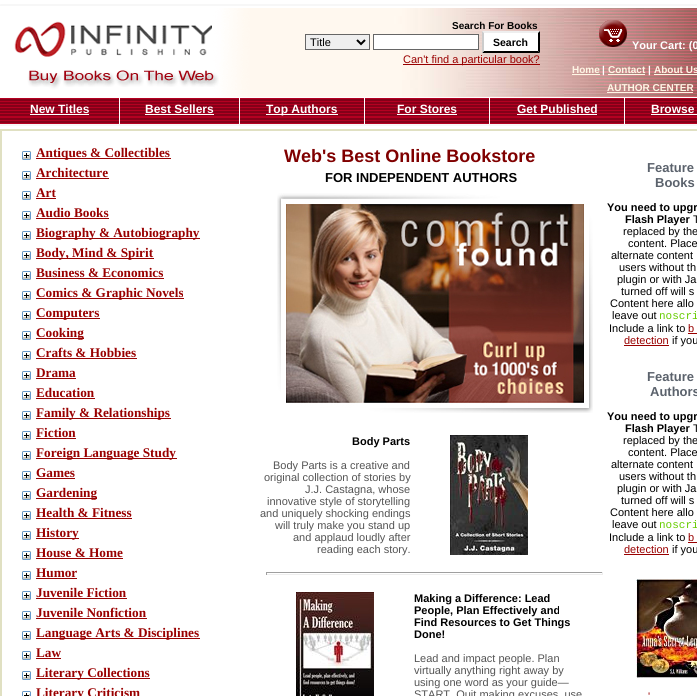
import math
import cairocffi as cairo

surface = cairo.ImageSurface(cairo.FORMAT_RGB24, 697, 696)
cr = cairo.Context(surface)
options = cairo.FontOptions()
options.set_hint_metrics(cairo.HINT_METRICS_OFF)
options.set_hint_style(cairo.HINT_STYLE_NONE)
cr.set_font_options(options)
cr.set_miter_limit(4)


def use_color(code):
    cr.set_source_rgb(*(v / 255 for v in bytes.fromhex(code[-6:])))


def picture(path, x, y, w, h):
    cr.save()
    cr.set_source_surface(cairo.ImageSurface.create_from_png(path), x, y)
    cr.rectangle(x, y, w, h)
    cr.fill()
    cr.restore()


use_color("#ffffff")
cr.paint()
picture("img1.png", 0, 4, 697, 125)
picture("img2.png", 0, 8, 250, 89)
picture("img3.png", 250, 8, 290, 89)
cr.select_font_face("Liberation Sans", cairo.FONT_SLANT_NORMAL, cairo.FONT_WEIGHT_BOLD)
cr.set_font_size(10)
use_color("#000000")
cr.move_to(452, 29)
cr.show_text("Search For Books")
use_color("#efefef")
cr.rectangle(305.5, 34.5, 64, 15)
cr.fill_preserve()
use_color("#666666")
cr.set_line_width(1)
cr.stroke()
cr.new_path()
cr.move_to(357, 40)
cr.line_to(361, 44)
cr.line_to(365, 40)
use_color("#000000")
cr.set_line_width(2)
cr.stroke()
cr.select_font_face("Liberation Sans")
cr.set_font_size(11)
cr.move_to(310, 46)
cr.show_text("Title")
use_color("#ffffff")
cr.rectangle(373.5, 34.5, 105, 15)
cr.fill_preserve()
use_color("#666666")
cr.set_line_width(1)
cr.stroke()
use_color("#ffffff")
cr.rectangle(482, 31, 58, 22)
cr.fill()
use_color("#eeeeee")
cr.new_path()
cr.move_to(482, 31)
cr.line_to(540, 31)
cr.line_to(538, 33)
cr.line_to(484, 33)
cr.close_path()
cr.fill()
use_color("#000000")
cr.new_path()
cr.move_to(540, 31)
cr.line_to(540, 53)
cr.line_to(538, 51)
cr.line_to(538, 33)
cr.close_path()
cr.fill()
cr.new_path()
cr.move_to(540, 53)
cr.line_to(482, 53)
cr.line_to(484, 51)
cr.line_to(538, 51)
cr.close_path()
cr.fill()
use_color("#cccccc")
cr.new_path()
cr.move_to(482, 53)
cr.line_to(482, 31)
cr.line_to(484, 33)
cr.line_to(484, 51)
cr.close_path()
cr.fill()
cr.select_font_face("Liberation Sans", cairo.FONT_SLANT_NORMAL, cairo.FONT_WEIGHT_BOLD)
cr.set_font_size(10.5)
use_color("#000000")
cr.move_to(493, 46)
cr.show_text("Search")
use_color("#990000")
cr.rectangle(403, 64, 137, 1)
cr.fill()
cr.select_font_face("Liberation Sans")
cr.set_font_size(11)
cr.move_to(403, 63)
cr.show_text("Can't find a particular book?")
picture("img4.png", 540, 8, 157, 89)
picture("img5.png", 599, 20, 28, 27)
cr.select_font_face("Liberation Sans", cairo.FONT_SLANT_NORMAL, cairo.FONT_WEIGHT_BOLD)
use_color("#ffffff")
cr.move_to(632, 49)
cr.show_text("Your Cart: (0")
cr.set_font_size(10)
use_color("#fff6e5")
cr.move_to(572, 73)
cr.show_text("Home")
cr.rectangle(572, 74, 28, 1)
cr.fill()
use_color("#ffffff")
cr.move_to(602, 73)
cr.show_text("|")
use_color("#fff6e5")
cr.move_to(608, 73)
cr.show_text("Contact")
cr.rectangle(608, 74, 37, 1)
cr.fill()
use_color("#ffffff")
cr.move_to(648, 73)
cr.show_text("|")
use_color("#fff6e5")
cr.move_to(654, 73)
cr.show_text("About Us")
cr.rectangle(654, 74, 43, 1)
cr.fill()
cr.move_to(607, 91)
cr.show_text("AUTHOR CENTER")
cr.rectangle(607, 92, 86, 1)
cr.fill()
picture("img6.png", 0, 98, 119, 26)
use_color("#ffffff")
cr.rectangle(119, 98, 1, 26)
cr.fill()
cr.set_font_size(12)
cr.move_to(30, 113)
cr.show_text("New Titles")
cr.rectangle(30, 114, 59, 1)
cr.fill()
picture("img6.png", 120, 98, 119, 26)
cr.rectangle(239, 98, 1, 26)
cr.fill()
cr.move_to(145, 113)
cr.show_text("Best Sellers")
cr.rectangle(145, 114, 69, 1)
cr.fill()
picture("img7.png", 240, 98, 124, 26)
cr.rectangle(364, 98, 1, 26)
cr.fill()
cr.rectangle(266, 114, 72, 1)
cr.fill()
cr.move_to(266, 113)
cr.show_text("Top Authors")
picture("img7.png", 365, 98, 124, 26)
cr.rectangle(489, 98, 1, 26)
cr.fill()
cr.move_to(397, 113)
cr.show_text("For Stores")
cr.rectangle(397, 114, 60, 1)
cr.fill()
picture("img8.png", 490, 98, 134, 26)
cr.rectangle(624, 98, 1, 26)
cr.fill()
cr.move_to(517, 113)
cr.show_text("Get Published")
cr.rectangle(517, 114, 80, 1)
cr.fill()
picture("img9.png", 625, 98, 72, 26)
cr.move_to(651, 113)
cr.show_text("Browse")
cr.rectangle(651, 114, 46, 1)
cr.fill()
use_color("#e0e0c2")
cr.rectangle(0, 129, 697, 567)
cr.fill()
use_color("#ffffff")
cr.rectangle(2, 131, 695, 565)
cr.fill()
picture("img10.png", 22, 151, 9, 9)
use_color("#990000")
cr.rectangle(36, 158, 135, 1)
cr.fill()
cr.select_font_face("Liberation Serif", cairo.FONT_SLANT_NORMAL, cairo.FONT_WEIGHT_BOLD)
cr.set_font_size(13.25)
cr.move_to(36, 157)
cr.show_text("Antiques & Collectibles")
picture("img10.png", 22, 171, 9, 9)
cr.move_to(36, 177)
cr.show_text("Architecture")
cr.rectangle(36, 178, 73, 1)
cr.fill()
picture("img10.png", 22, 191, 9, 9)
cr.move_to(36, 197)
cr.show_text("Art")
cr.rectangle(36, 198, 20, 1)
cr.fill()
picture("img10.png", 22, 211, 9, 9)
cr.move_to(36, 217)
cr.show_text("Audio Books")
cr.rectangle(36, 218, 73, 1)
cr.fill()
picture("img10.png", 22, 231, 9, 9)
cr.rectangle(36, 238, 164, 1)
cr.fill()
cr.move_to(36, 237)
cr.show_text("Biography & Autobiography")
picture("img10.png", 22, 251, 9, 9)
cr.rectangle(36, 258, 118, 1)
cr.fill()
cr.move_to(36, 257)
cr.show_text("Body, Mind & Spirit")
picture("img10.png", 22, 271, 9, 9)
cr.move_to(36, 277)
cr.show_text("Business & Economics")
cr.rectangle(36, 278, 128, 1)
cr.fill()
picture("img10.png", 22, 291, 9, 9)
cr.rectangle(36, 298, 148, 1)
cr.fill()
cr.move_to(36, 297)
cr.show_text("Comics & Graphic Novels")
picture("img10.png", 22, 311, 9, 9)
cr.rectangle(36, 318, 64, 1)
cr.fill()
cr.move_to(36, 317)
cr.show_text("Computers")
picture("img10.png", 22, 331, 9, 9)
cr.rectangle(36, 338, 48, 1)
cr.fill()
cr.move_to(36, 337)
cr.show_text("Cooking")
picture("img10.png", 22, 351, 9, 9)
cr.move_to(36, 357)
cr.show_text("Crafts & Hobbies")
cr.rectangle(36, 358, 101, 1)
cr.fill()
picture("img10.png", 22, 371, 9, 9)
cr.move_to(36, 377)
cr.show_text("Drama")
cr.rectangle(36, 378, 40, 1)
cr.fill()
picture("img10.png", 22, 391, 9, 9)
cr.move_to(36, 397)
cr.show_text("Education")
cr.rectangle(36, 398, 59, 1)
cr.fill()
picture("img10.png", 22, 411, 9, 9)
cr.rectangle(36, 418, 135, 1)
cr.fill()
cr.move_to(36, 417)
cr.show_text("Family & Relationships")
picture("img10.png", 22, 431, 9, 9)
cr.move_to(36, 437)
cr.show_text("Fiction")
cr.rectangle(36, 438, 40, 1)
cr.fill()
picture("img10.png", 22, 451, 9, 9)
cr.rectangle(36, 458, 141, 1)
cr.fill()
cr.move_to(36, 457)
cr.show_text("Foreign Language Study")
picture("img10.png", 22, 471, 9, 9)
cr.move_to(36, 477)
cr.show_text("Games")
cr.rectangle(36, 478, 39, 1)
cr.fill()
picture("img10.png", 22, 491, 9, 9)
cr.rectangle(36, 498, 61, 1)
cr.fill()
cr.move_to(36, 497)
cr.show_text("Gardening")
picture("img10.png", 22, 511, 9, 9)
cr.move_to(36, 517)
cr.show_text("Health & Fitness")
cr.rectangle(36, 518, 96, 1)
cr.fill()
picture("img10.png", 22, 531, 9, 9)
cr.rectangle(36, 538, 43, 1)
cr.fill()
cr.move_to(36, 537)
cr.show_text("History")
picture("img10.png", 22, 551, 9, 9)
cr.move_to(36, 557)
cr.show_text("House & Home")
cr.rectangle(36, 558, 87, 1)
cr.fill()
picture("img10.png", 22, 571, 9, 9)
cr.move_to(36, 577)
cr.show_text("Humor")
cr.rectangle(36, 578, 41, 1)
cr.fill()
picture("img10.png", 22, 591, 9, 9)
cr.move_to(36, 597)
cr.show_text("Juvenile Fiction")
cr.rectangle(36, 598, 91, 1)
cr.fill()
picture("img10.png", 22, 611, 9, 9)
cr.move_to(36, 617)
cr.show_text("Juvenile Nonfiction")
cr.rectangle(36, 618, 111, 1)
cr.fill()
picture("img10.png", 22, 631, 9, 9)
cr.rectangle(36, 638, 164, 1)
cr.fill()
cr.move_to(36, 637)
cr.show_text("Language Arts & Disciplines")
picture("img10.png", 22, 651, 9, 9)
cr.move_to(36, 657)
cr.show_text("Law")
cr.rectangle(36, 658, 25, 1)
cr.fill()
picture("img10.png", 22, 671, 9, 9)
cr.rectangle(36, 678, 114, 1)
cr.fill()
cr.move_to(36, 677)
cr.show_text("Literary Collections")
picture("img11.png", 22, 691, 9, 5)
cr.move_to(36, 697)
cr.show_text("Literary Criticism")
cr.select_font_face("Liberation Sans", cairo.FONT_SLANT_NORMAL, cairo.FONT_WEIGHT_BOLD)
cr.set_font_size(18)
use_color("#800000")
cr.move_to(284, 162)
cr.show_text("Web's Best Online Bookstore")
cr.set_font_size(13)
use_color("#000000")
cr.move_to(325, 182)
cr.show_text("FOR INDEPENDENT AUTHORS")
picture("img12.png", 277, 193, 316, 220)
cr.set_font_size(11)
cr.move_to(352, 445)
cr.show_text("Body Parts")
cr.select_font_face("Liberation Sans")
use_color("#545454")
cr.move_to(273, 469)
cr.show_text("Body Parts is a creative and")
cr.move_to(264, 481)
cr.show_text("original collection of stories by")
cr.move_to(305, 493)
cr.show_text("J.J. Castagna, whose")
cr.move_to(267, 505)
cr.show_text("innovative style of storytelling")
cr.move_to(260, 517)
cr.show_text("and uniquely shocking endings")
cr.move_to(275, 529)
cr.show_text("will truly make you stand up")
cr.move_to(293, 541)
cr.show_text("and applaud loudly after")
cr.move_to(317, 553)
cr.show_text("reading each story.")
picture("img13.png", 450, 435, 78, 120)
use_color("#9f9f9f")
cr.rectangle(266, 572, 337, 1)
cr.fill()
use_color("#eeeeee")
cr.rectangle(602, 572, 1, 3)
cr.fill()
cr.rectangle(266, 574, 337, 1)
cr.fill()
use_color("#9f9f9f")
cr.rectangle(266, 572, 1, 3)
cr.fill()
picture("img14.png", 296, 592, 78, 104)
cr.select_font_face("Liberation Sans", cairo.FONT_SLANT_NORMAL, cairo.FONT_WEIGHT_BOLD)
use_color("#000000")
cr.move_to(414, 602)
cr.show_text("Making a Difference: Lead")
cr.move_to(414, 614)
cr.show_text("People, Plan Effectively and")
cr.move_to(414, 626)
cr.show_text("Find Resources to Get Things")
cr.move_to(414, 638)
cr.show_text("Done!")
cr.select_font_face("Liberation Sans")
use_color("#545454")
cr.move_to(414, 662)
cr.show_text("Lead and impact people. Plan")
cr.move_to(414, 674)
cr.show_text("virtually anything right away by")
cr.move_to(414, 686)
cr.show_text("using one word as your guide—")
cr.move_to(414, 698)
cr.show_text("START. Quit making excuses, use")
cr.select_font_face("Liberation Sans", cairo.FONT_SLANT_NORMAL, cairo.FONT_WEIGHT_BOLD)
cr.set_font_size(13)
use_color("#5b626c")
cr.move_to(647, 172)
cr.show_text("Feature")
cr.move_to(655, 187)
cr.show_text("Books")
cr.set_font_size(11)
use_color("#000000")
cr.move_to(607, 211)
cr.show_text("You need to upgr")
cr.move_to(625, 223)
cr.show_text("Flash Player")
cr.select_font_face("Liberation Sans")
cr.move_to(693, 223)
cr.show_text("T")
cr.move_to(623, 235)
cr.show_text("replaced by the")
cr.move_to(628, 247)
cr.show_text("content. Place")
cr.move_to(611, 259)
cr.show_text("alternate content")
cr.move_to(619, 271)
cr.show_text("users without th")
cr.move_to(617, 283)
cr.show_text("plugin or with Ja")
cr.move_to(621, 295)
cr.show_text("turned off will s")
cr.move_to(610, 307)
cr.show_text("Content here allo")
cr.move_to(612, 319)
cr.show_text("leave out")
cr.select_font_face("Liberation Mono")
use_color("#66cc00")
cr.move_to(659, 319)
cr.show_text("noscri")
cr.select_font_face("Liberation Sans")
use_color("#000000")
cr.move_to(609, 332)
cr.show_text("Include a link to")
use_color("#990000")
cr.move_to(688, 332)
cr.show_text("b")
cr.rectangle(688, 333, 9, 1)
cr.fill()
cr.move_to(624, 344)
cr.show_text("detection")
cr.rectangle(624, 345, 45, 1)
cr.fill()
use_color("#000000")
cr.move_to(672, 344)
cr.show_text("if you")
cr.select_font_face("Liberation Sans", cairo.FONT_SLANT_NORMAL, cairo.FONT_WEIGHT_BOLD)
cr.set_font_size(13)
use_color("#5b626c")
cr.move_to(647, 381)
cr.show_text("Feature")
cr.move_to(650, 396)
cr.show_text("Authors")
cr.set_font_size(11)
use_color("#000000")
cr.move_to(607, 420)
cr.show_text("You need to upgr")
cr.move_to(625, 432)
cr.show_text("Flash Player")
cr.select_font_face("Liberation Sans")
cr.move_to(693, 432)
cr.show_text("T")
cr.move_to(623, 444)
cr.show_text("replaced by the")
cr.move_to(628, 456)
cr.show_text("content. Place")
cr.move_to(611, 468)
cr.show_text("alternate content")
cr.move_to(619, 480)
cr.show_text("users without th")
cr.move_to(617, 492)
cr.show_text("plugin or with Ja")
cr.move_to(621, 504)
cr.show_text("turned off will s")
cr.move_to(610, 516)
cr.show_text("Content here allo")
cr.move_to(612, 528)
cr.show_text("leave out")
cr.select_font_face("Liberation Mono")
use_color("#66cc00")
cr.move_to(659, 528)
cr.show_text("noscri")
cr.select_font_face("Liberation Sans")
use_color("#000000")
cr.move_to(609, 541)
cr.show_text("Include a link to")
use_color("#990000")
cr.move_to(688, 541)
cr.show_text("b")
cr.rectangle(688, 542, 9, 1)
cr.fill()
cr.move_to(624, 553)
cr.show_text("detection")
cr.rectangle(624, 554, 45, 1)
cr.fill()
use_color("#000000")
cr.move_to(672, 553)
cr.show_text("if you")
picture("img15.png", 636, 579, 61, 99)
use_color("#990000")
cr.move_to(648, 700)
cr.show_text("'")
surface.write_to_png("result.png")
